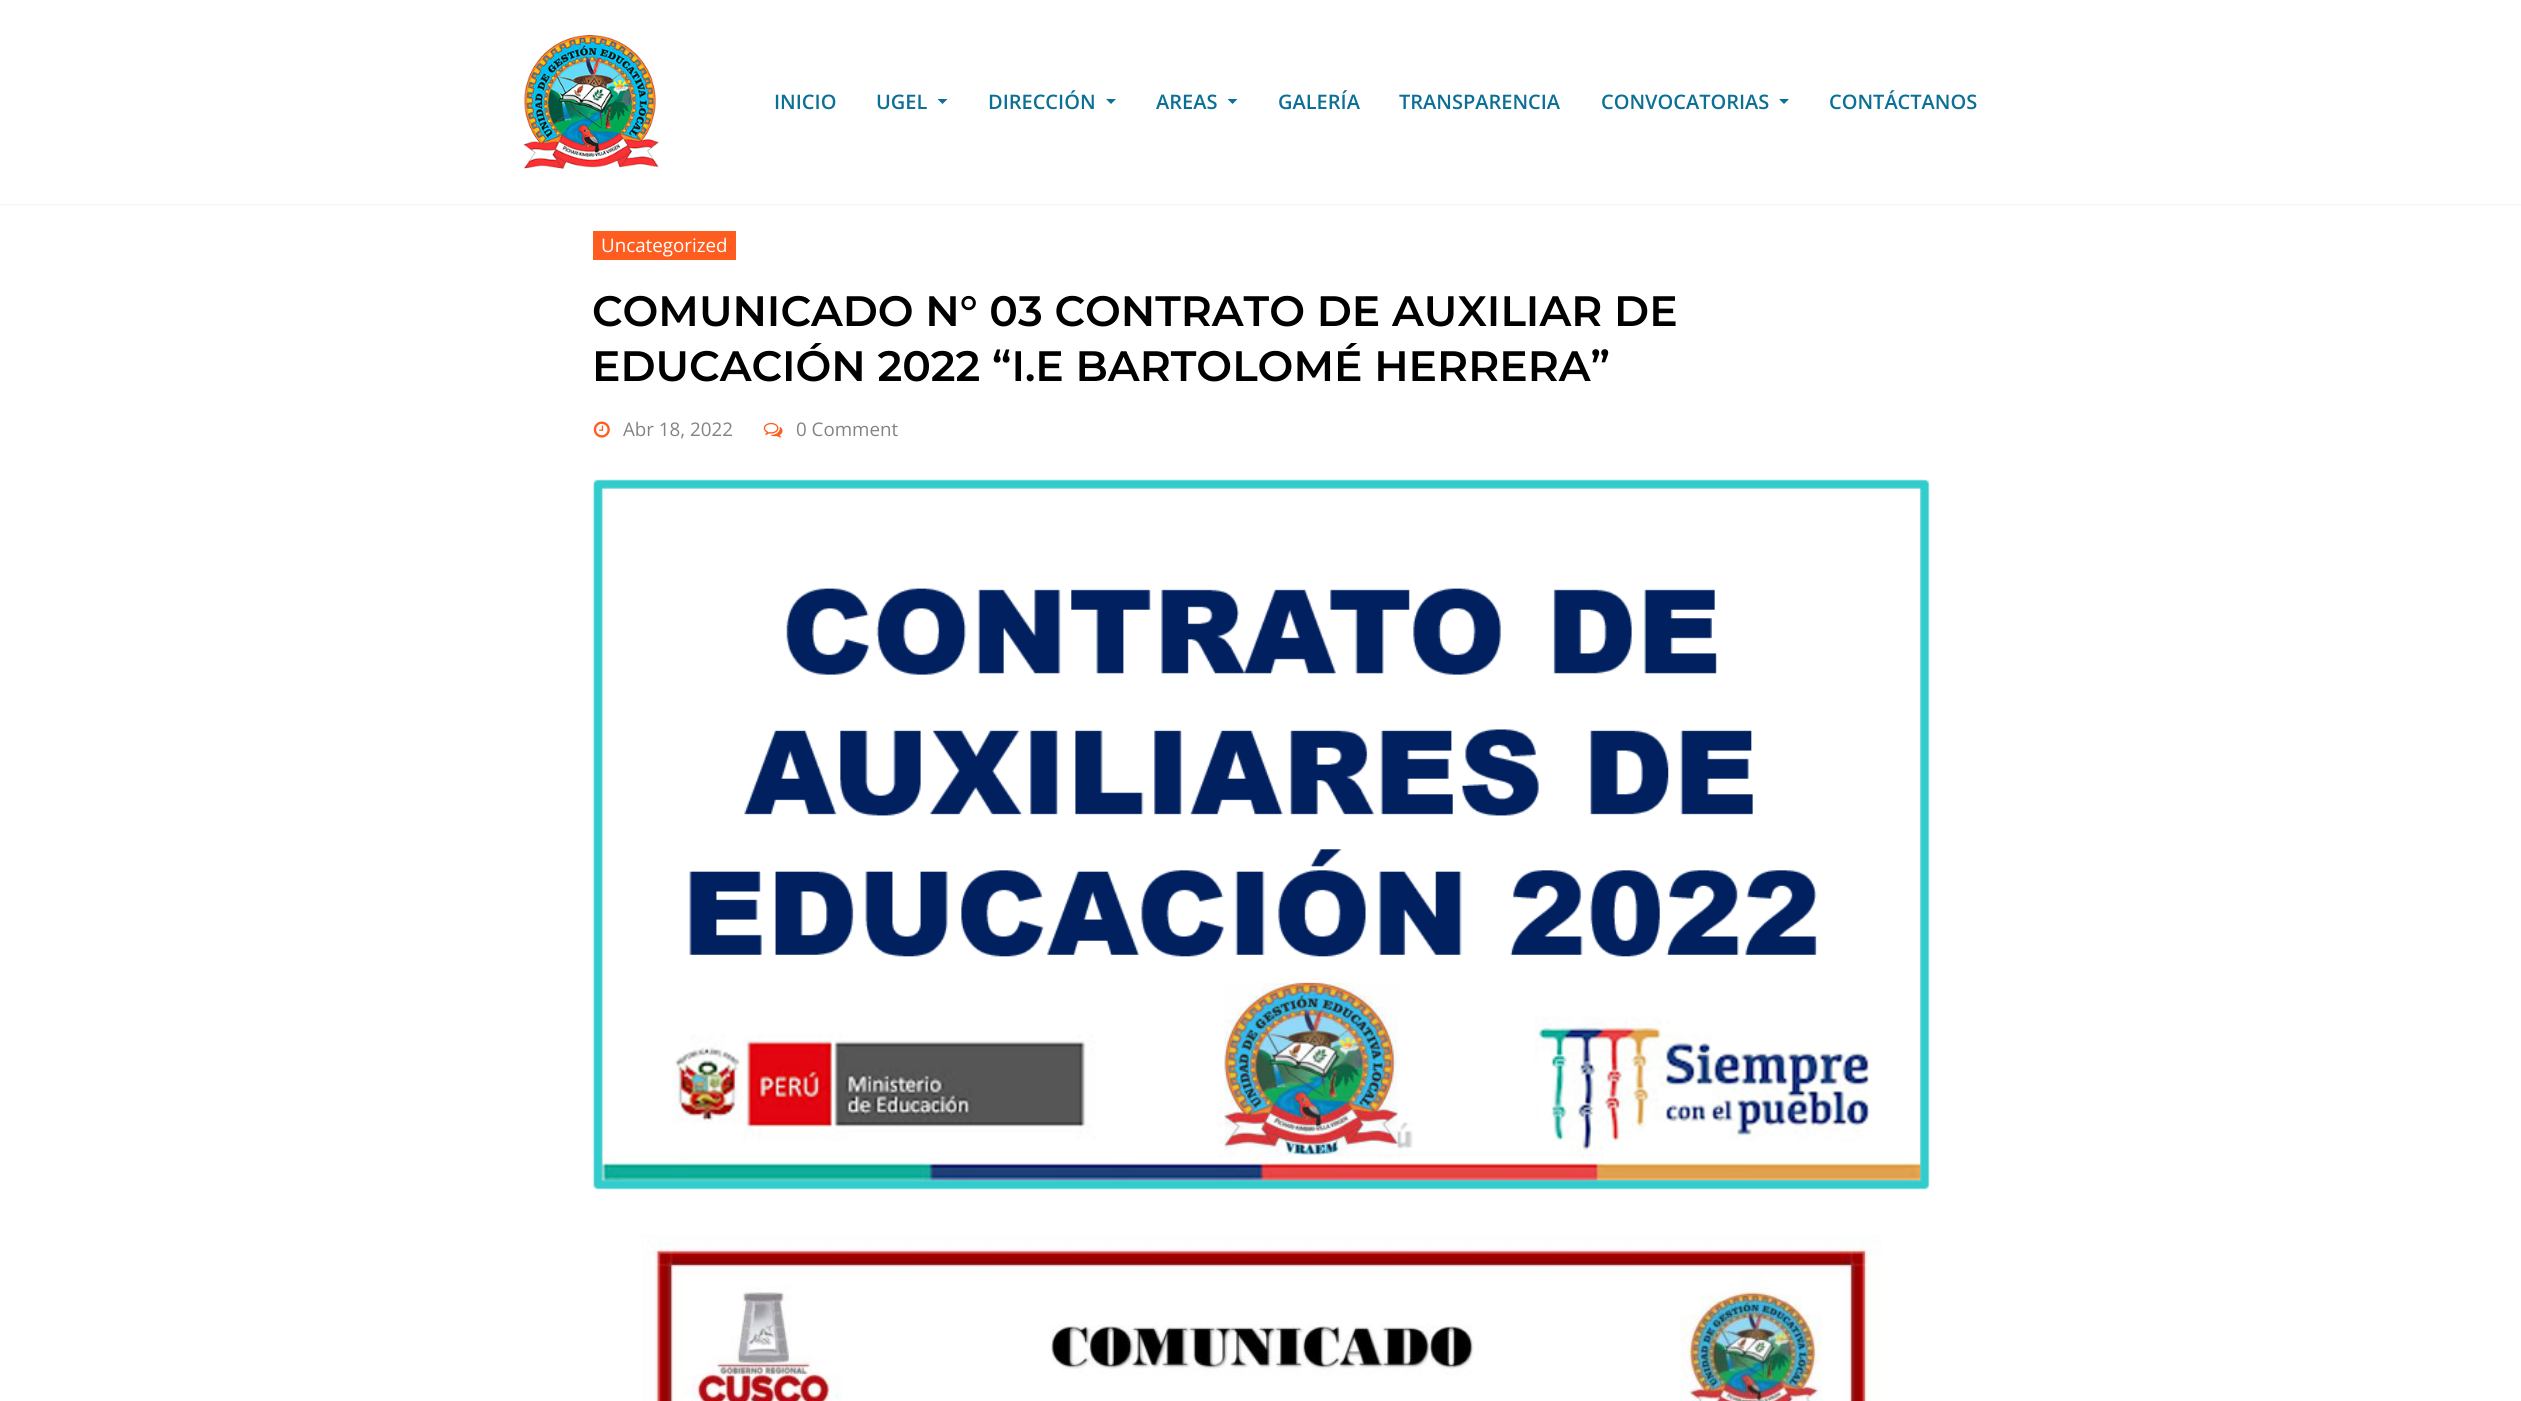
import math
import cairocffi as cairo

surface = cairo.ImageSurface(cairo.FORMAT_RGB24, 2521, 1401)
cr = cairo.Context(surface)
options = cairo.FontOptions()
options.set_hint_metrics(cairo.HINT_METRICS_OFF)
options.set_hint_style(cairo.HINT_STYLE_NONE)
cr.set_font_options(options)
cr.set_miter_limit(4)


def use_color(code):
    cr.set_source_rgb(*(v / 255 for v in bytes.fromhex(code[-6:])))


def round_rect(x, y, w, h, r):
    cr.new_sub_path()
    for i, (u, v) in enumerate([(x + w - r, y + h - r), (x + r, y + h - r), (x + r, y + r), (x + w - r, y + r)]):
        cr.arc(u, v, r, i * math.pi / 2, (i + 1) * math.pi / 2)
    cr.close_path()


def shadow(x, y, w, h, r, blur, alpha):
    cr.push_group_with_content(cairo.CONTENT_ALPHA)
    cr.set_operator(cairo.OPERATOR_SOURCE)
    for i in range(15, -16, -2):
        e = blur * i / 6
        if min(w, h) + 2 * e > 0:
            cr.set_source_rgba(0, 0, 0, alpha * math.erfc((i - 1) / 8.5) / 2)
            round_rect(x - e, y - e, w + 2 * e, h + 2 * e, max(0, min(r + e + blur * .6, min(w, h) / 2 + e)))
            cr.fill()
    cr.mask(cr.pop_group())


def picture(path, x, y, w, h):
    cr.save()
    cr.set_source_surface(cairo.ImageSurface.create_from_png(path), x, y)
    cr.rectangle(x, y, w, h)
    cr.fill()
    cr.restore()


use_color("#ffffff")
cr.paint()
use_color("#000000")
shadow(0, 1, 2521, 204, 0, 1, 0.05)
use_color("#ffffff")
cr.rectangle(0, 0, 2521, 204)
cr.fill()
picture("img1.png", 523, 35, 136, 134)
cr.select_font_face("Open Sans SemiBold")
cr.set_font_size(20)
use_color("#0c7096")
cr.move_to(774, 109)
cr.show_text("INICIO")
cr.move_to(876, 109)
cr.show_text("UGEL")
cr.new_path()
cr.move_to(937.5, 99)
cr.line_to(947.5, 99)
cr.line_to(942.5, 104)
cr.close_path()
cr.fill()
cr.move_to(988, 109)
cr.show_text("DIRECCIÓN")
cr.new_path()
cr.move_to(1106, 99)
cr.line_to(1116, 99)
cr.line_to(1111, 104)
cr.close_path()
cr.fill()
cr.move_to(1156, 109)
cr.show_text("AREAS")
cr.new_path()
cr.move_to(1227.5, 99)
cr.line_to(1237.5, 99)
cr.line_to(1232.5, 104)
cr.close_path()
cr.fill()
cr.move_to(1278, 109)
cr.show_text("GALERÍA")
cr.move_to(1399, 109)
cr.show_text("TRANSPARENCIA")
cr.move_to(1601, 109)
cr.show_text("CONVOCATORIAS")
cr.new_path()
cr.move_to(1779, 99)
cr.line_to(1789, 99)
cr.line_to(1784, 104)
cr.close_path()
cr.fill()
cr.move_to(1829, 109)
cr.show_text("CONTÁCTANOS")
use_color("#ff5d20")
cr.rectangle(593, 231, 143, 29)
cr.fill()
cr.select_font_face("Open Sans")
cr.set_font_size(18.75)
use_color("#ffffff")
cr.move_to(601, 252)
cr.show_text("Uncategorized")
cr.select_font_face("Montserrat SemiBold")
cr.set_font_size(42.5)
use_color("#000000")
cr.move_to(592, 326)
cr.show_text("COMUNICADO N° 03 CONTRATO DE AUXILIAR DE")
cr.move_to(592, 381)
cr.show_text("EDUCACIÓN 2022 “I.E BARTOLOMÉ HERRERA”")
picture("img2.png", 593, 421, 17, 17)
cr.select_font_face("Open Sans")
cr.set_font_size(18.75)
use_color("#838383")
cr.move_to(623, 436)
cr.show_text("Abr 18, 2022")
picture("img3.png", 763, 422, 20, 16)
cr.move_to(796, 436)
cr.show_text("0 Comment")
picture("img4.png", 592, 479, 1338, 711)
picture("img5.png", 641, 1235, 1241, 166)
surface.write_to_png("result.png")
